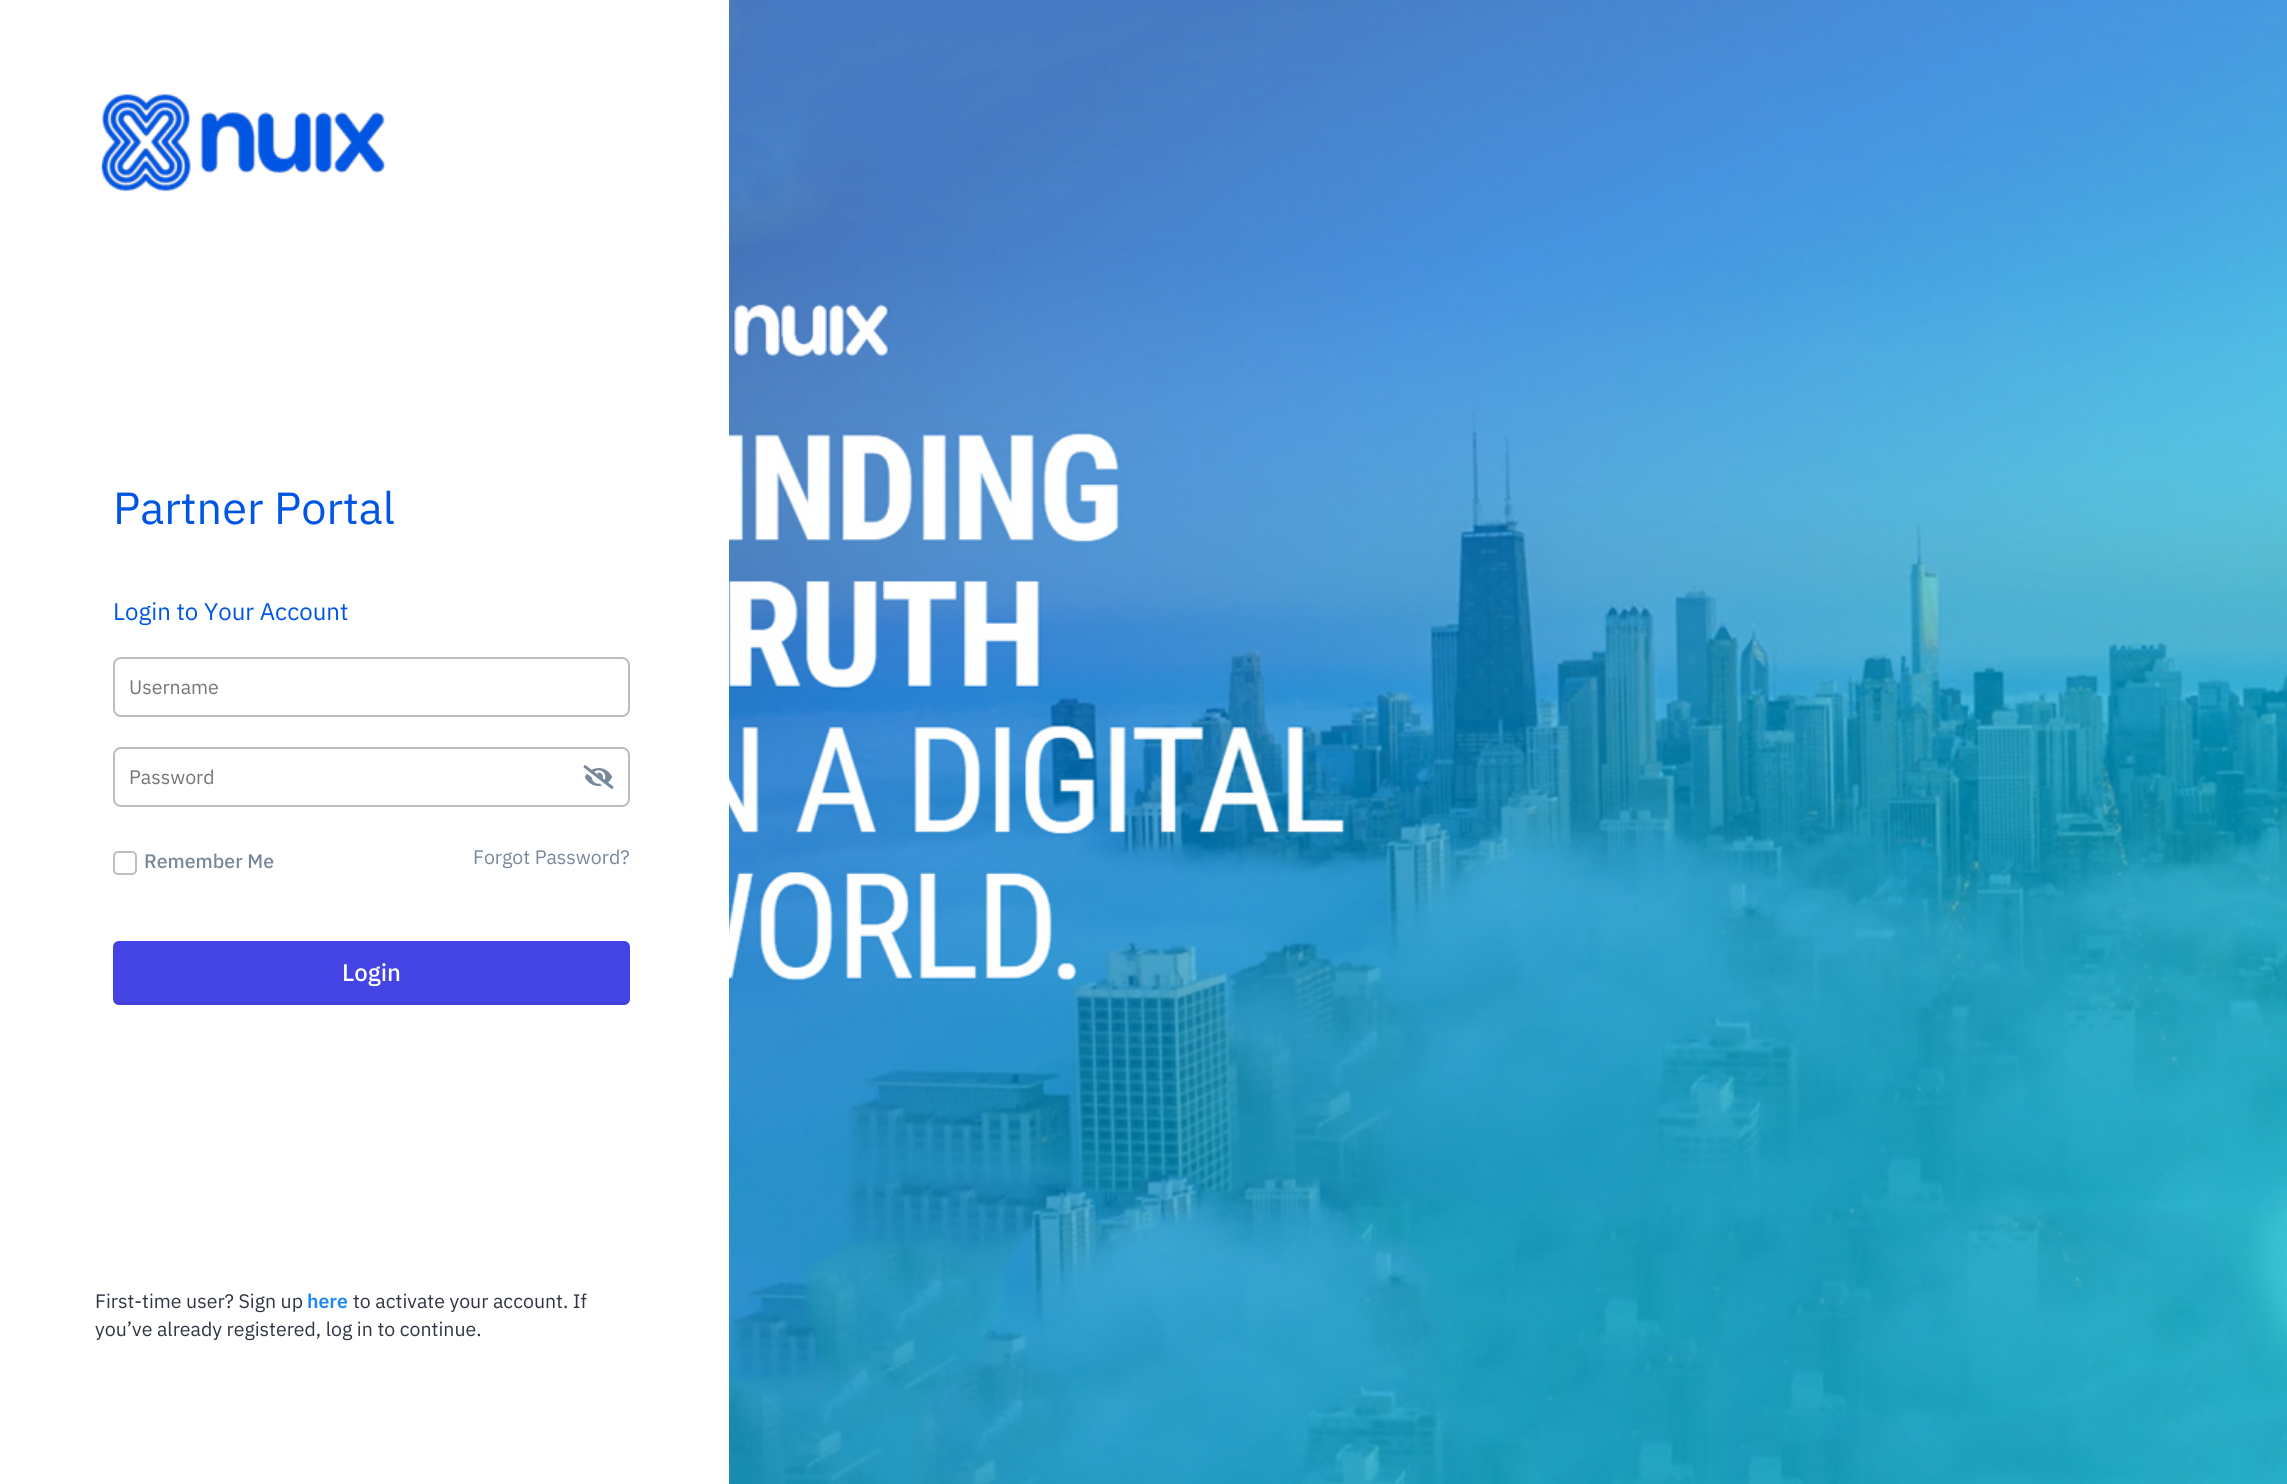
import math
import cairocffi as cairo

surface = cairo.ImageSurface(cairo.FORMAT_RGB24, 2287, 1484)
cr = cairo.Context(surface)
options = cairo.FontOptions()
options.set_hint_metrics(cairo.HINT_METRICS_OFF)
options.set_hint_style(cairo.HINT_STYLE_NONE)
cr.set_font_options(options)
cr.set_miter_limit(4)


def use_color(code):
    cr.set_source_rgb(*(v / 255 for v in bytes.fromhex(code[-6:])))


def round_rect(x, y, w, h, r):
    cr.new_sub_path()
    for i, (u, v) in enumerate([(x + w - r, y + h - r), (x + r, y + h - r), (x + r, y + r), (x + w - r, y + r)]):
        cr.arc(u, v, r, i * math.pi / 2, (i + 1) * math.pi / 2)
    cr.close_path()


def picture(path, x, y, w, h):
    cr.save()
    cr.set_source_surface(cairo.ImageSurface.create_from_png(path), x, y)
    cr.rectangle(x, y, w, h)
    cr.fill()
    cr.restore()


use_color("#ffffff")
cr.paint()
picture("img1.png", 101, 94, 285, 98)
cr.select_font_face("IBM Plex Sans")
cr.set_font_size(45)
use_color("#0056e3")
cr.move_to(113, 524)
cr.show_text("Partner Portal")
cr.set_font_size(24)
cr.move_to(113, 620)
cr.show_text("Login to Your Account")
round_rect(114, 658, 515, 58, 7)
use_color("#bdbdbd")
cr.stroke()
cr.set_font_size(19.5)
use_color("#757575")
cr.move_to(129, 694)
cr.show_text("Username")
round_rect(114, 748, 515, 58, 7)
use_color("#bdbdbd")
cr.stroke()
use_color("#757575")
cr.move_to(129, 784)
cr.show_text("Password")
picture("img2.png", 583, 765, 31, 24)
round_rect(114, 852, 22, 22, 4)
use_color("#bfbfbf")
cr.stroke()
cr.select_font_face("IBM Plex Sans Medium")
use_color("#77889a")
cr.move_to(144, 868)
cr.show_text("Remember Me")
cr.select_font_face("IBM Plex Sans")
cr.move_to(473, 864)
cr.show_text("Forgot Password?")
use_color("#4443e4")
round_rect(113, 941, 517, 64, 6)
cr.fill()
cr.set_source_rgba(0, 0, 0, 0.05)
cr.new_path()
cr.move_to(113, 999)
cr.curve_to(113, 1002, 116, 1005, 119, 1005)
cr.line_to(624, 1005)
cr.curve_to(627, 1005, 630, 1002, 630, 999)
cr.line_to(630, 996)
cr.curve_to(630, 999, 627, 1002, 624, 1002)
cr.line_to(118, 1002)
cr.curve_to(116, 1002, 114, 1001, 113, 999)
cr.close_path()
cr.fill()
cr.select_font_face("IBM Plex Sans Medium")
cr.set_font_size(24)
use_color("#ffffff")
cr.move_to(342, 981)
cr.show_text("Login")
cr.select_font_face("IBM Plex Sans")
cr.set_font_size(19.5)
use_color("#2f3542")
cr.move_to(95, 1308)
cr.show_text("First-time user? Sign up")
cr.select_font_face("IBM Plex Sans SemiBold")
use_color("#2188f9")
cr.move_to(307, 1308)
cr.show_text("here")
cr.select_font_face("IBM Plex Sans")
use_color("#2f3542")
cr.move_to(353, 1308)
cr.show_text("to activate your account. If")
cr.move_to(95, 1336)
cr.show_text("you’ve already registered, log in to continue.")
picture("img3.png", 729, 0, 1558, 1484)
surface.write_to_png("result.png")
